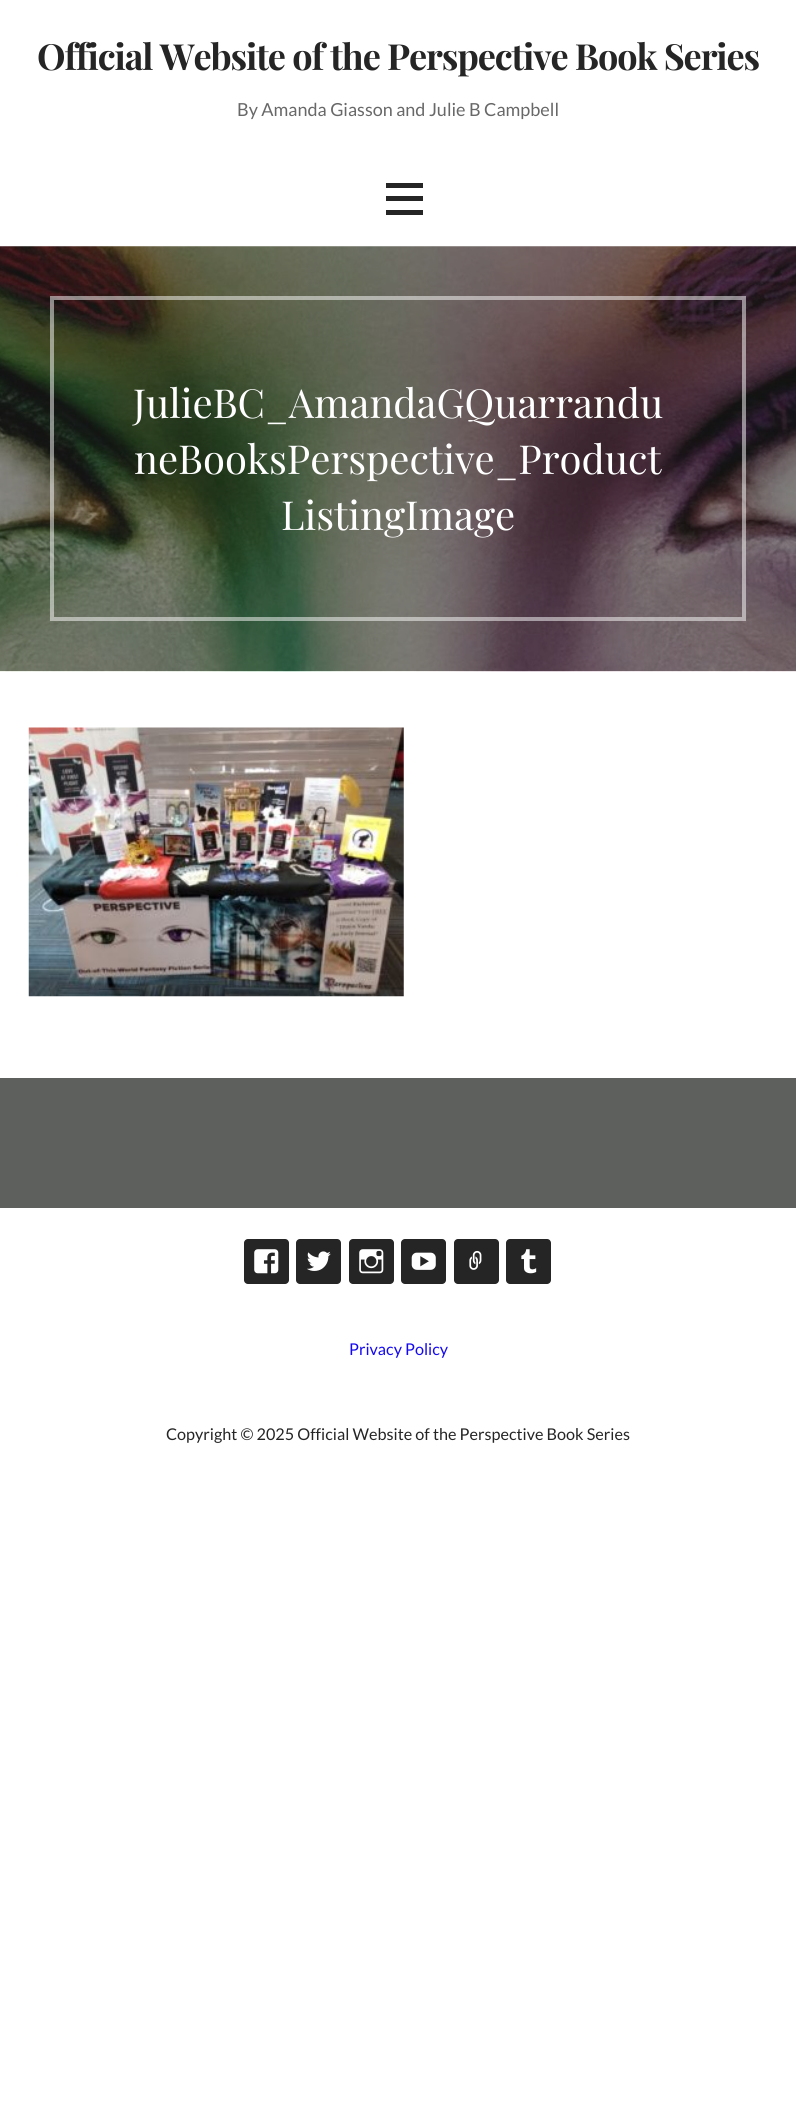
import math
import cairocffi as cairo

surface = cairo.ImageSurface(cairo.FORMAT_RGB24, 796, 2118)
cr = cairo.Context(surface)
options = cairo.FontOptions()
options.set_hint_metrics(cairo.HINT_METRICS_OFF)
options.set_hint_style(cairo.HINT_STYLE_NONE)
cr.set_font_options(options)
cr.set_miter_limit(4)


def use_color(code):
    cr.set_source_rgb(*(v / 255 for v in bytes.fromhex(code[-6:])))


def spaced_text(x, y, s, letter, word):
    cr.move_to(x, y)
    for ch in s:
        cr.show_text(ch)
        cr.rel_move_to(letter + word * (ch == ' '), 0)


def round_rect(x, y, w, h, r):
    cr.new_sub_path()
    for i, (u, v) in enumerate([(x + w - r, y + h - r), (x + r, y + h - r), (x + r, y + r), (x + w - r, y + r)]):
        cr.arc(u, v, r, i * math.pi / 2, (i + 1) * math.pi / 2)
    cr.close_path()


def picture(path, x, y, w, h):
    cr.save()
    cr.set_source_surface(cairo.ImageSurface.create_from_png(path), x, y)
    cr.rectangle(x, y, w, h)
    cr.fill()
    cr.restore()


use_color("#ffffff")
cr.paint()
cr.select_font_face("Playfair Display", cairo.FONT_SLANT_NORMAL, cairo.FONT_WEIGHT_BOLD)
cr.set_font_size(36)
use_color("#252525")
spaced_text(37, 70, "Official Website of the Perspective Book Series", -1.1, 0)
cr.select_font_face("Lato")
cr.set_font_size(18)
use_color("#686868")
cr.move_to(237, 116)
cr.show_text("By Amanda Giasson and Julie B Campbell")
use_color("#252525")
cr.rectangle(386, 183, 37, 5)
cr.fill()
cr.rectangle(386, 196, 37, 5)
cr.fill()
cr.rectangle(386, 210, 37, 5)
cr.fill()
picture("img1.png", 0, 246, 796, 426)
cr.rectangle(52, 298, 692, 321)
cr.set_source_rgba(1, 1, 1, 0.5)
cr.set_line_width(4)
cr.stroke()
cr.select_font_face("Playfair Display")
cr.set_font_size(40)
use_color("#ffffff")
cr.move_to(133, 418)
cr.show_text("JulieBC_AmandaGQuarrandu")
cr.move_to(134, 474)
cr.show_text("neBooksPerspective_Product")
cr.move_to(281, 530)
cr.show_text("ListingImage")
picture("img2.png", 28, 727, 376, 270)
use_color("#5d605d")
cr.rectangle(0, 1078, 796, 130)
cr.fill()
use_color("#252525")
round_rect(244, 1239, 45, 45, 4)
cr.fill()
picture("img3.png", 254, 1249, 25, 25)
round_rect(296, 1239, 45, 45, 4)
cr.fill()
picture("img4.png", 307, 1251, 24, 20)
round_rect(349, 1239, 45, 45, 4)
cr.fill()
picture("img5.png", 359, 1249, 25, 25)
round_rect(401, 1239, 45, 45, 4)
cr.fill()
picture("img6.png", 411, 1252, 25, 18)
round_rect(454, 1239, 45, 45, 4)
cr.fill()
picture("img7.png", 469, 1250, 13, 20)
round_rect(506, 1239, 45, 45, 4)
cr.fill()
picture("img8.png", 521, 1249, 16, 25)
cr.select_font_face("Lato")
cr.set_font_size(16.2)
use_color("#1509f2")
cr.move_to(349, 1355)
cr.show_text("Privacy Policy")
use_color("#252525")
cr.move_to(166, 1440)
cr.show_text("Copyright © 2025 Official Website of the Perspective Book Series")
surface.write_to_png("result.png")
